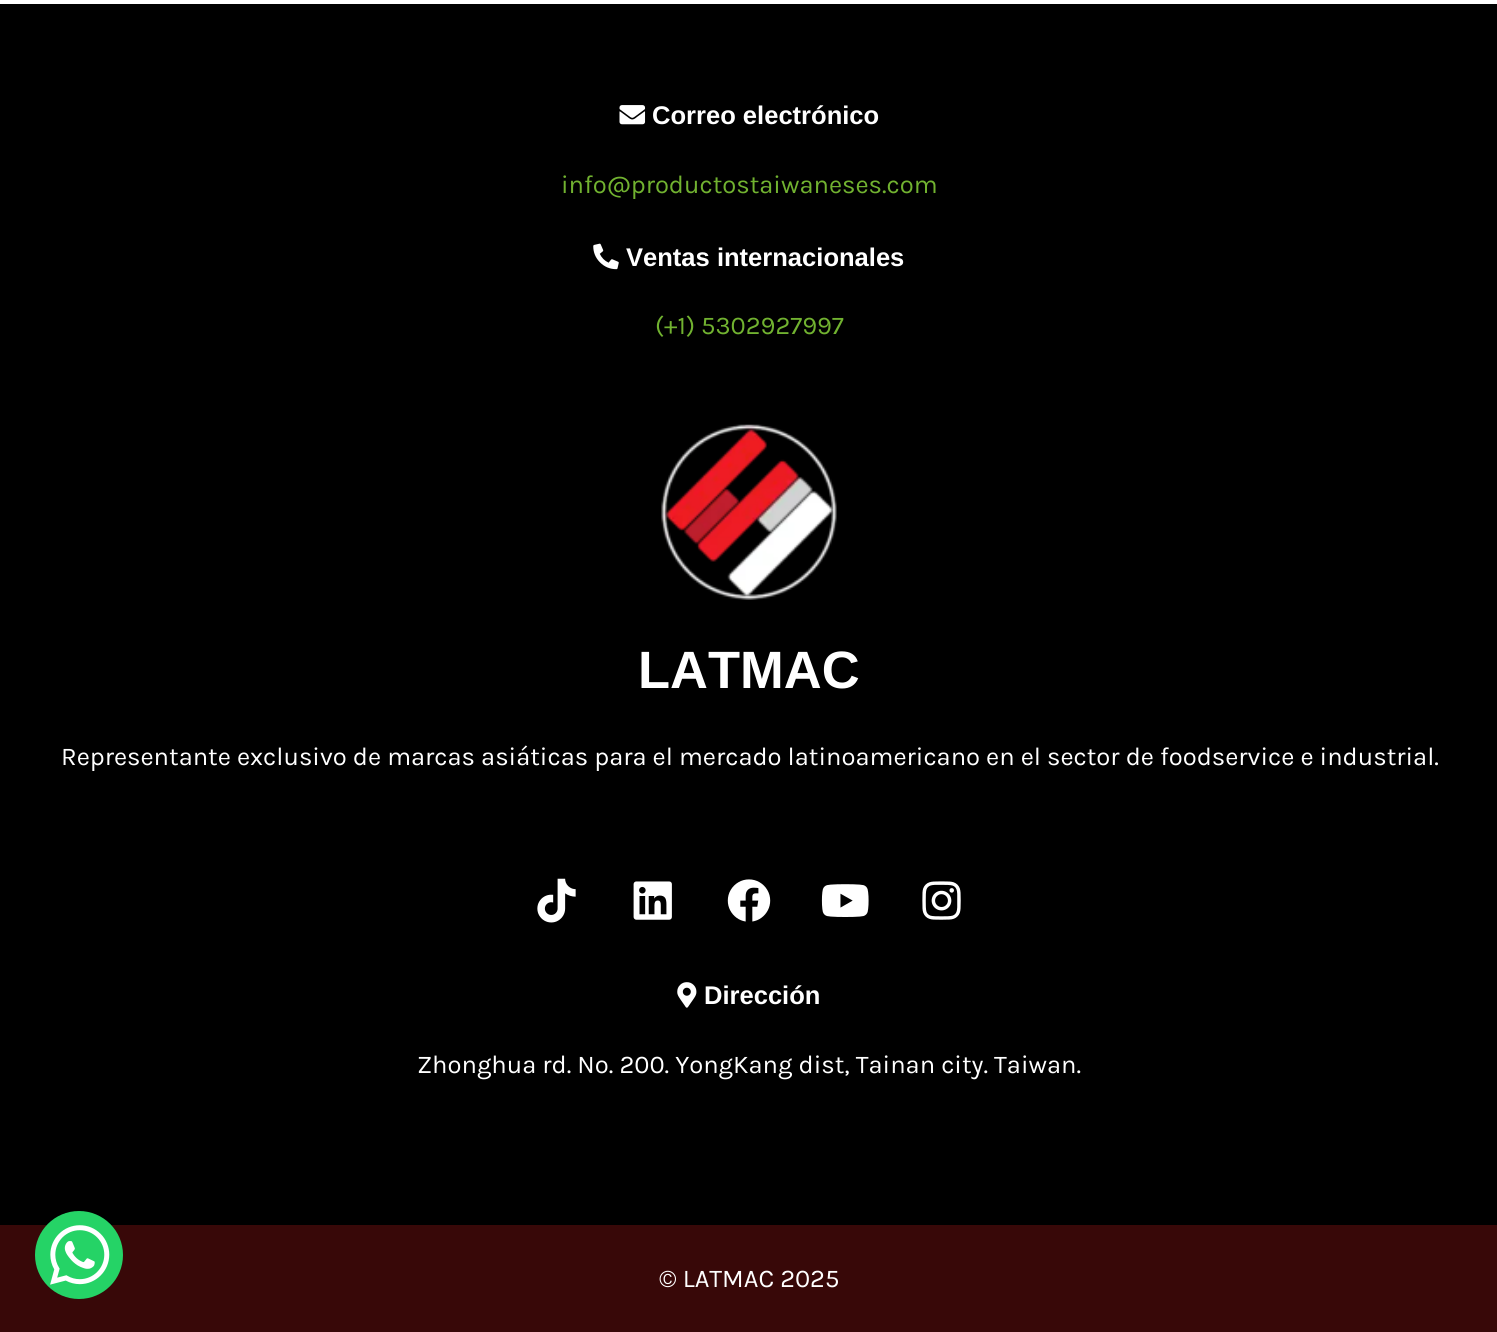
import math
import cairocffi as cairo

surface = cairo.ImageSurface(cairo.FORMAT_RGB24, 1497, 1332)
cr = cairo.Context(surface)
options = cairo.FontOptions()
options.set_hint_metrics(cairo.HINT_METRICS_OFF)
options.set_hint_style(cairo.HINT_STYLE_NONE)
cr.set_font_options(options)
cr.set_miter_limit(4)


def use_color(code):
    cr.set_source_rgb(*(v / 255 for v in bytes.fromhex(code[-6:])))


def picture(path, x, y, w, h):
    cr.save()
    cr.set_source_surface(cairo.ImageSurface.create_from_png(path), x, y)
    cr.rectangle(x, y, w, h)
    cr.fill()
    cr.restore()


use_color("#ffffff")
cr.paint()
use_color("#000000")
cr.rectangle(0, 4, 1497, 1221)
cr.fill()
picture("img1.png", 619, 105, 27, 20)
cr.select_font_face("Liberation Sans", cairo.FONT_SLANT_NORMAL, cairo.FONT_WEIGHT_BOLD)
cr.set_font_size(25.55)
use_color("#ffffff")
cr.move_to(652, 124)
cr.show_text("Correo electrónico")
cr.select_font_face("Karla")
use_color("#71b230")
cr.move_to(561, 193)
cr.show_text("info@productostaiwaneses.com")
picture("img2.png", 593, 243, 26, 27)
cr.select_font_face("Liberation Sans", cairo.FONT_SLANT_NORMAL, cairo.FONT_WEIGHT_BOLD)
use_color("#ffffff")
cr.move_to(626, 266)
cr.show_text("Ventas internacionales")
cr.select_font_face("Karla")
use_color("#71b230")
cr.move_to(655, 334)
cr.show_text("(+1) 5302927997")
picture("img3.png", 661, 424, 176, 176)
cr.select_font_face("Liberation Sans", cairo.FONT_SLANT_NORMAL, cairo.FONT_WEIGHT_BOLD)
cr.set_font_size(52.5)
use_color("#ffffff")
cr.move_to(638, 688)
cr.show_text("LATMAC")
cr.select_font_face("Karla")
cr.set_font_size(25.55)
cr.move_to(61, 765)
cr.show_text("Representante exclusivo de marcas asiáticas para el mercado latinoamericano en el sector de foodservice e industrial.")
picture("img4.png", 537, 878, 39, 45)
picture("img5.png", 633, 881, 39, 39)
picture("img6.png", 727, 879, 44, 43)
picture("img7.png", 821, 884, 48, 33)
picture("img8.png", 922, 881, 39, 39)
picture("img9.png", 677, 982, 20, 26)
cr.select_font_face("Liberation Sans", cairo.FONT_SLANT_NORMAL, cairo.FONT_WEIGHT_BOLD)
cr.move_to(704, 1004)
cr.show_text("Dirección")
cr.select_font_face("Karla")
cr.move_to(417, 1073)
cr.show_text("Zhonghua rd. No. 200. YongKang dist, Tainan city. Taiwan.")
use_color("#380808")
cr.rectangle(0, 1225, 1497, 107)
cr.fill()
use_color("#ffffff")
cr.move_to(659, 1287)
cr.show_text("© LATMAC 2025")
use_color("#25d366")
cr.new_path()
cr.arc(79, 1255, 44, 0, 2 * math.pi)
cr.fill()
picture("img10.png", 50, 1225, 60, 60)
surface.write_to_png("result.png")
